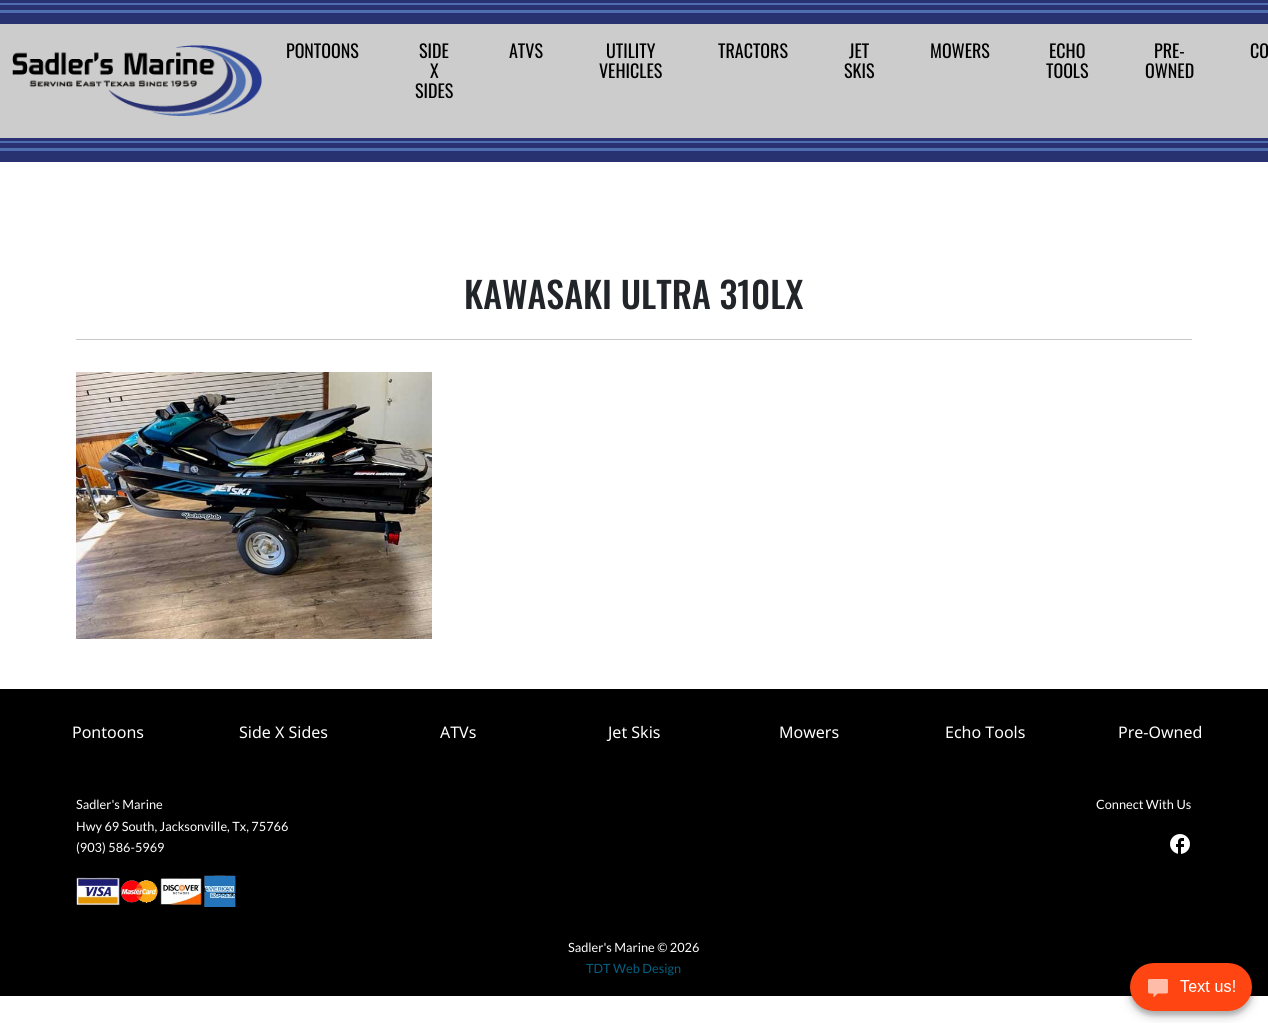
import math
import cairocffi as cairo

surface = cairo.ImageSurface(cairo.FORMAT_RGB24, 1268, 1035)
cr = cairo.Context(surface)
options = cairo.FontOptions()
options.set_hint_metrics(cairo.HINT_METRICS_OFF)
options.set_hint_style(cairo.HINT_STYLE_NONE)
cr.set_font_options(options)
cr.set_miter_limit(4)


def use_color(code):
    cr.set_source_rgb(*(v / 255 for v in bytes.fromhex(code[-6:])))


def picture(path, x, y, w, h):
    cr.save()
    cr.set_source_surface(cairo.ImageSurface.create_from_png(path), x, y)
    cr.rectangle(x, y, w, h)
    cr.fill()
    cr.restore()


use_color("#ffffff")
cr.paint()
use_color("#cccccc")
cr.rectangle(0, 24, 1268, 114)
cr.fill()
picture("img1.png", 0, 0, 1268, 24)
picture("img2.png", 12, 45, 250, 71)
cr.select_font_face("Oswald")
cr.set_font_size(18)
use_color("#000000")
cr.move_to(286, 58)
cr.show_text("PONTOONS")
cr.move_to(419, 58)
cr.show_text("SIDE")
cr.move_to(430, 78)
cr.show_text("X")
cr.move_to(415, 98)
cr.show_text("SIDES")
cr.move_to(509, 58)
cr.show_text("ATVS")
cr.move_to(606, 58)
cr.show_text("UTILITY")
cr.move_to(599, 78)
cr.show_text("VEHICLES")
cr.move_to(718, 58)
cr.show_text("TRACTORS")
cr.move_to(849, 58)
cr.show_text("JET")
cr.move_to(844, 78)
cr.show_text("SKIS")
cr.move_to(930, 58)
cr.show_text("MOWERS")
cr.move_to(1049, 58)
cr.show_text("ECHO")
cr.move_to(1046, 78)
cr.show_text("TOOLS")
cr.move_to(1154, 58)
cr.show_text("PRE-")
cr.move_to(1145, 78)
cr.show_text("OWNED")
cr.move_to(1250, 58)
cr.show_text("CO")
picture("img1.png", 0, 138, 1268, 24)
cr.select_font_face("Oswald Medium")
cr.set_font_size(36)
use_color("#212529")
cr.move_to(464, 309)
cr.show_text("KAWASAKI ULTRA 310LX")
use_color("#c8c9ca")
cr.rectangle(76, 339, 1116, 1)
cr.fill()
picture("img3.png", 76, 372, 356, 267)
use_color("#000000")
cr.rectangle(0, 689, 1268, 307)
cr.fill()
cr.select_font_face("Noto Sans")
cr.set_font_size(16)
use_color("#ffffff")
cr.move_to(72, 738)
cr.show_text("Pontoons")
cr.move_to(239, 738)
cr.show_text("Side X Sides")
cr.move_to(440, 738)
cr.show_text("ATVs")
cr.move_to(608, 738)
cr.show_text("Jet Skis")
cr.move_to(779, 738)
cr.show_text("Mowers")
cr.move_to(945, 738)
cr.show_text("Echo Tools")
cr.move_to(1118, 738)
cr.show_text("Pre-Owned")
cr.select_font_face("Lato")
cr.set_font_size(12.75)
cr.move_to(76, 809)
cr.show_text("Sadler's Marine")
cr.move_to(76, 831)
cr.show_text("Hwy 69 South, Jacksonville, Tx, 75766")
cr.move_to(76, 852)
cr.show_text("(903) 586-5969")
picture("img4.png", 76, 875, 160, 32)
cr.move_to(1096, 809)
cr.show_text("Connect With Us")
picture("img5.png", 1170, 834, 20, 20)
cr.move_to(568, 952)
cr.show_text("Sadler's Marine © 2026")
use_color("#036080")
cr.move_to(586, 973)
cr.show_text("TDT Web Design")
picture("img6.png", 1123, 963, 136, 60)
surface.write_to_png("result.png")
